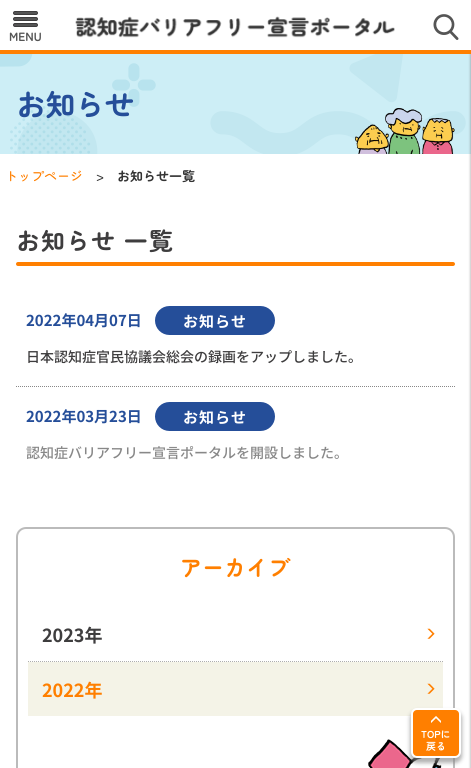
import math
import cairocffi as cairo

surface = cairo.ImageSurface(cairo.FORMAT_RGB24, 471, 768)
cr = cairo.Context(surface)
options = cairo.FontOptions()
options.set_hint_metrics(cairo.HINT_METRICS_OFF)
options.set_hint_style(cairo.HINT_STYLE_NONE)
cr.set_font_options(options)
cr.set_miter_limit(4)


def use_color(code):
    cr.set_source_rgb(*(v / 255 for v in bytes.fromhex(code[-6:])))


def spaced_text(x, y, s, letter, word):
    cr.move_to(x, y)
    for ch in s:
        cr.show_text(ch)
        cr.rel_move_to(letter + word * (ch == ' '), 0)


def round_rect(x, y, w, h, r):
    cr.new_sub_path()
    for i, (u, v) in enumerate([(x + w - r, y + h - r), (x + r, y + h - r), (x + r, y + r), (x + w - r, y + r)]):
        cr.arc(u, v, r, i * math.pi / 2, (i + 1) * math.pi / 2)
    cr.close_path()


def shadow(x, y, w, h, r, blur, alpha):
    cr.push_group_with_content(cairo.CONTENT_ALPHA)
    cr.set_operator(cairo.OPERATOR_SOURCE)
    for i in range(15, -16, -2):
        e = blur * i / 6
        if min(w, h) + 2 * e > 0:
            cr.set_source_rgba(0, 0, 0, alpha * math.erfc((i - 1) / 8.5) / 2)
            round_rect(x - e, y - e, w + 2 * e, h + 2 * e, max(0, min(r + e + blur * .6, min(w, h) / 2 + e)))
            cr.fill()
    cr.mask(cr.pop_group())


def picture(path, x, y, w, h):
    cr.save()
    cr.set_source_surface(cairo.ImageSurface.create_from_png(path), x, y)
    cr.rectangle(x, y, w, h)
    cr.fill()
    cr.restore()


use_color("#ffffff")
cr.paint()
picture("img3.png", 0, 54, 471, 100)
use_color("#5f5f5f")
shadow(470, 0, 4, 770, 0, 1, 0.35)
use_color("#ffffff")
cr.rectangle(468, 0, 3, 50)
cr.fill()
use_color("#555555")
round_rect(13.5, 11.5, 24, 3, 1.5)
cr.fill_preserve()
use_color("#3e3d3e")
cr.set_line_width(1)
cr.stroke()
use_color("#555555")
round_rect(13.5, 17.5, 24, 3, 1.5)
cr.fill_preserve()
use_color("#3e3d3e")
cr.stroke()
use_color("#555555")
round_rect(13.5, 23.5, 24, 3, 1.5)
cr.fill_preserve()
use_color("#3e3d3e")
cr.stroke()
cr.select_font_face("Zen Maru Gothic", cairo.FONT_SLANT_NORMAL, cairo.FONT_WEIGHT_BOLD)
cr.set_font_size(12)
use_color("#555555")
cr.move_to(9, 41)
cr.show_text("MENU")
picture("img1.png", 433, 14, 26, 26)
picture("img2.png", 75, 16, 320, 22)
use_color("#ff7f00")
cr.rectangle(0, 50, 471, 4)
cr.fill()
cr.set_font_size(30)
use_color("#254e99")
spaced_text(16, 116, "お知らせ", -0.5, 0)
picture("img4.png", 355, 108, 100, 46)
cr.select_font_face("Zen Maru Gothic Medium")
cr.set_font_size(13)
use_color("#ff7f00")
cr.move_to(5, 181)
cr.show_text("トップページ")
use_color("#333333")
cr.move_to(96, 181)
cr.show_text(">")
cr.select_font_face("Zen Maru Gothic", cairo.FONT_SLANT_NORMAL, cairo.FONT_WEIGHT_BOLD)
cr.move_to(117, 181)
cr.show_text("お知らせ一覧")
cr.set_font_size(24)
use_color("#3e3d3e")
spaced_text(16, 250, "お知らせ 一覧", 1, 0)
use_color("#ff7f00")
round_rect(16, 262, 439, 4, 2)
cr.fill()
cr.select_font_face("Noto Sans JP", cairo.FONT_SLANT_NORMAL, cairo.FONT_WEIGHT_BOLD)
cr.set_font_size(15)
use_color("#254e99")
cr.move_to(26, 326)
cr.show_text("2022年04月07日")
round_rect(156, 307, 118, 27, 13.5)
cr.fill_preserve()
cr.set_line_width(2)
cr.stroke()
use_color("#ffffff")
spaced_text(183, 327, "お知らせ", 1, 0)
cr.select_font_face("Noto Sans JP Medium")
cr.set_font_size(14)
use_color("#3e3d3e")
cr.move_to(26, 362)
cr.show_text("日本認知症官民協議会総会の録画をアップしました。")
cr.new_path()
cr.move_to(16, 386.5)
cr.line_to(455, 386.5)
use_color("#888888")
cr.set_line_width(1)
cr.set_dash([1, 1])
cr.stroke()
cr.select_font_face("Noto Sans JP", cairo.FONT_SLANT_NORMAL, cairo.FONT_WEIGHT_BOLD)
cr.set_font_size(15)
use_color("#254e99")
cr.move_to(26, 422)
cr.show_text("2022年03月23日")
round_rect(156, 403, 118, 27, 13.5)
cr.fill_preserve()
cr.set_line_width(2)
cr.set_dash([])
cr.stroke()
use_color("#ffffff")
spaced_text(183, 423, "お知らせ", 1, 0)
cr.select_font_face("Noto Sans JP Medium")
cr.set_font_size(14)
use_color("#888888")
cr.move_to(26, 458)
cr.show_text("認知症バリアフリー宣言ポータルを開設しました。")
round_rect(17, 528, 437, 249, 9)
use_color("#bbbbbb")
cr.stroke()
cr.select_font_face("Zen Maru Gothic", cairo.FONT_SLANT_NORMAL, cairo.FONT_WEIGHT_BOLD)
cr.set_font_size(22)
use_color("#ff7f00")
cr.move_to(180, 576)
cr.show_text("アーカイブ")
cr.select_font_face("Noto Sans JP", cairo.FONT_SLANT_NORMAL, cairo.FONT_WEIGHT_BOLD)
cr.set_font_size(18)
use_color("#3e3d3e")
cr.move_to(42, 642)
cr.show_text("2023年")
picture("img5.png", 427, 628, 8, 11)
cr.new_path()
cr.move_to(28, 661.5)
cr.line_to(443, 661.5)
use_color("#aeaeae")
cr.set_line_width(1)
cr.set_dash([1, 1])
cr.stroke()
use_color("#f4f3e7")
cr.rectangle(28, 662, 415, 54)
cr.fill()
use_color("#ff7f00")
cr.move_to(42, 697)
cr.show_text("2022年")
picture("img6.png", 427, 683, 8, 11)
picture("img7.png", 368, 739, 74, 29)
use_color("#888888")
shadow(410, 711, 52, 52, 7, 2, 0.65)
use_color("#ff7f00")
round_rect(412, 709, 48, 48, 5)
cr.fill_preserve()
use_color("#ffffff")
cr.set_line_width(2)
cr.set_dash([])
cr.stroke()
picture("img8.png", 431, 716, 10, 7)
cr.select_font_face("Zen Maru Gothic", cairo.FONT_SLANT_NORMAL, cairo.FONT_WEIGHT_BOLD)
cr.set_font_size(10)
cr.move_to(421, 738)
cr.show_text("TOPに")
cr.move_to(426, 750)
cr.show_text("戻る")
surface.write_to_png("result.png")
